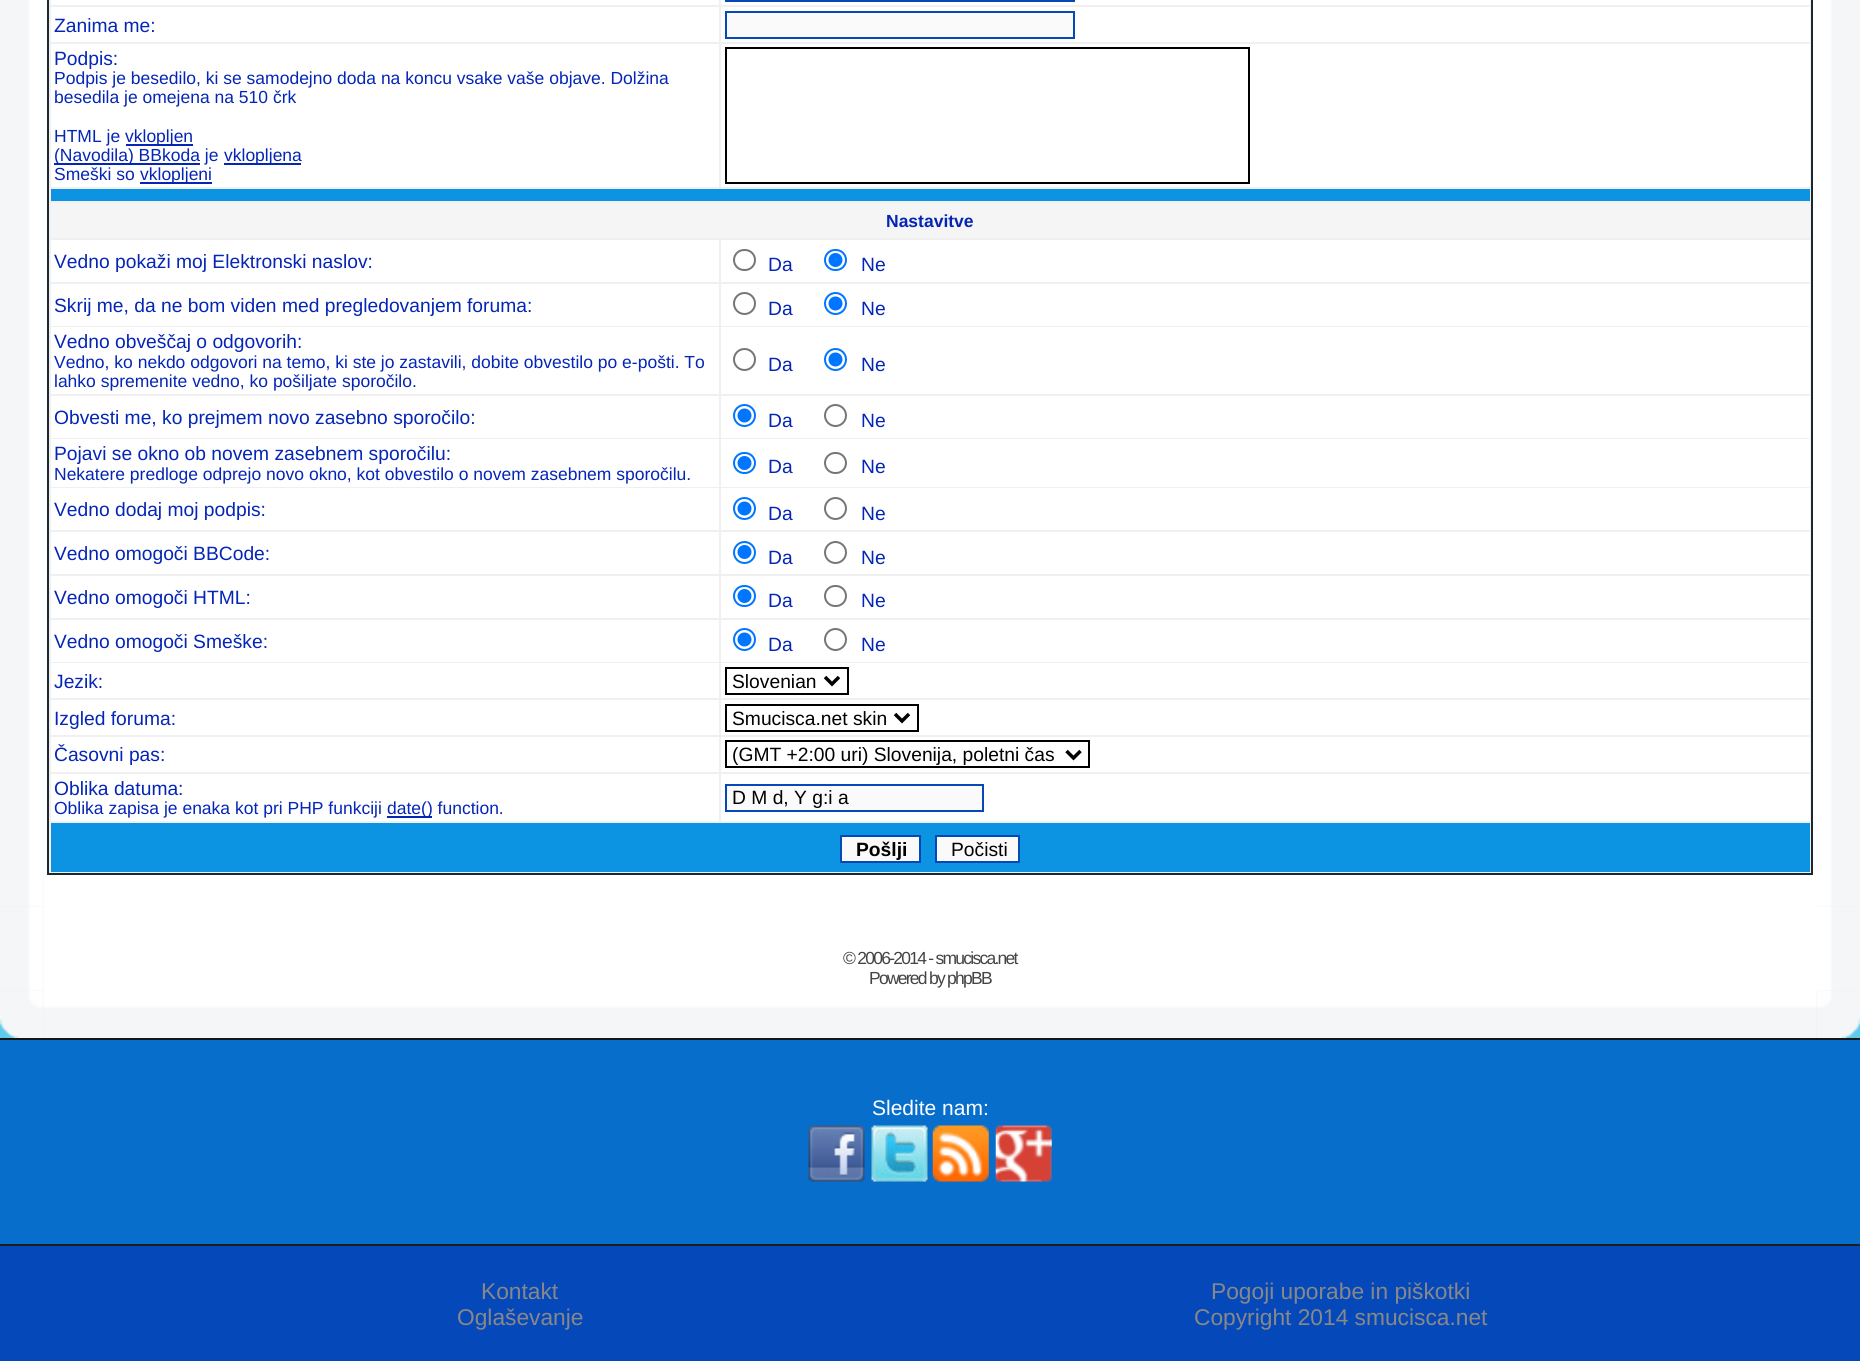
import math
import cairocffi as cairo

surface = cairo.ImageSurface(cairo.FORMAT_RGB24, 1860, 1361)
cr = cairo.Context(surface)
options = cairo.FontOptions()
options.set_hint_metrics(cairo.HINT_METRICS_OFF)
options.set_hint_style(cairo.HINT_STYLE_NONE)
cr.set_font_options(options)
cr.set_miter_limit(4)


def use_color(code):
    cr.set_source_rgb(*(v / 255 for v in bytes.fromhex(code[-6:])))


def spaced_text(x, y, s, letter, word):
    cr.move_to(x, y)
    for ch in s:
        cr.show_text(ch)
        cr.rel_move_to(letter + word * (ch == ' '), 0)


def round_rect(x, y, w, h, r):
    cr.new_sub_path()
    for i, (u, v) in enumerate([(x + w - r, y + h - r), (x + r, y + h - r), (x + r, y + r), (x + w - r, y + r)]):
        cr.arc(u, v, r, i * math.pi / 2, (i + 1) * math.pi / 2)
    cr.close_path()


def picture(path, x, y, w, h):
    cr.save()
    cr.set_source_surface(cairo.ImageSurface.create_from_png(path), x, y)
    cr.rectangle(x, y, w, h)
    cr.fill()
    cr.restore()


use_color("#e0edf3")
cr.paint()
picture("img1.png", 0, 0, 44, 907)
use_color("#ffffff")
cr.rectangle(44, 0, 1773, 991)
cr.fill()
use_color("#f0f0f0")
cr.rectangle(48, -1, 1764, 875)
cr.fill_preserve()
use_color("#192832")
cr.stroke()
use_color("#ffffff")
cr.rectangle(51, 0, 668, 5)
cr.fill()
cr.rectangle(721, 0, 1089, 5)
cr.fill()
cr.rectangle(726, -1, 348, 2)
use_color("#0548b8")
cr.stroke()
use_color("#ffffff")
cr.rectangle(51, 7, 668, 35)
cr.fill()
cr.select_font_face("Liberation Sans")
cr.set_font_size(19.25)
use_color("#0425b6")
cr.move_to(54, 32)
cr.show_text("Zanima me:")
use_color("#ffffff")
cr.rectangle(721, 7, 1089, 35)
cr.fill()
use_color("#fafafa")
cr.rectangle(726, 12, 348, 26)
cr.fill_preserve()
use_color("#0548b8")
cr.stroke()
use_color("#ffffff")
cr.rectangle(51, 44, 668, 143)
cr.fill()
use_color("#0425b6")
cr.move_to(54, 65)
cr.show_text("Podpis:")
cr.set_font_size(17.5)
cr.move_to(54, 84)
cr.show_text("Podpis je besedilo, ki se samodejno doda na koncu vsake vaše objave. Dolžina")
cr.move_to(54, 103)
cr.show_text("besedila je omejena na 510 črk")
cr.move_to(54, 142)
cr.show_text("HTML je")
cr.rectangle(126, 144, 67, 2)
cr.fill()
cr.move_to(125, 142)
cr.show_text("vklopljen")
cr.rectangle(54, 163, 146, 2)
cr.fill()
cr.move_to(54, 161)
cr.show_text("(Navodila) BBkoda je")
cr.rectangle(224, 163, 77, 2)
cr.fill()
cr.move_to(224, 161)
cr.show_text("vklopljena")
cr.move_to(54, 180)
cr.show_text("Smeški so")
cr.rectangle(140, 182, 72, 2)
cr.fill()
cr.move_to(140, 180)
cr.show_text("vklopljeni")
use_color("#ffffff")
cr.rectangle(721, 44, 1089, 143)
cr.fill()
cr.rectangle(726, 48, 523, 135)
use_color("#000000")
cr.stroke()
use_color("#0c94e2")
cr.rectangle(51, 189, 1759, 12)
cr.fill()
use_color("#f5f5f5")
cr.rectangle(51, 203, 1759, 35)
cr.fill()
cr.select_font_face("Liberation Sans", cairo.FONT_SLANT_NORMAL, cairo.FONT_WEIGHT_BOLD)
use_color("#0425b6")
cr.move_to(886, 227)
cr.show_text("Nastavitve")
use_color("#ffffff")
cr.rectangle(51, 240, 668, 42)
cr.fill()
cr.select_font_face("Liberation Sans")
cr.set_font_size(19.25)
use_color("#0425b6")
cr.move_to(54, 268)
cr.show_text("Vedno pokaži moj Elektronski naslov:")
use_color("#ffffff")
cr.rectangle(721, 240, 1089, 42)
cr.fill()
round_rect(734, 250, 21, 20, 10)
use_color("#767676")
cr.stroke()
use_color("#0425b6")
cr.move_to(768, 271)
cr.show_text("Da")
round_rect(825, 250, 21, 20, 10)
use_color("#0075ff")
cr.stroke()
cr.arc(835.5, 260, 7, 0, 2 * math.pi)
cr.fill()
use_color("#0425b6")
cr.move_to(861, 271)
cr.show_text("Ne")
use_color("#ffffff")
cr.rectangle(51, 284, 668, 42)
cr.fill()
use_color("#0425b6")
cr.move_to(54, 312)
cr.show_text("Skrij me, da ne bom viden med pregledovanjem foruma:")
use_color("#ffffff")
cr.rectangle(721, 284, 1089, 42)
cr.fill()
cr.arc(744.5, 303.5, 10.5, 0, 2 * math.pi)
use_color("#767676")
cr.stroke()
use_color("#0425b6")
cr.move_to(768, 315)
cr.show_text("Da")
cr.new_path()
cr.arc(835.5, 303.5, 10.5, 0, 2 * math.pi)
use_color("#0075ff")
cr.stroke()
cr.arc(835.5, 303.5, 7, 0, 2 * math.pi)
cr.fill()
use_color("#0425b6")
cr.move_to(861, 315)
cr.show_text("Ne")
use_color("#ffffff")
cr.rectangle(51, 327, 668, 67)
cr.fill()
use_color("#0425b6")
cr.move_to(54, 348)
cr.show_text("Vedno obveščaj o odgovorih:")
cr.set_font_size(17.5)
cr.move_to(54, 368)
cr.show_text("Vedno, ko nekdo odgovori na temo, ki ste jo zastavili, dobite obvestilo po e-pošti. To")
cr.move_to(54, 387)
cr.show_text("lahko spremenite vedno, ko pošiljate sporočilo.")
use_color("#ffffff")
cr.rectangle(721, 327, 1089, 67)
cr.fill()
cr.arc(744.5, 359.5, 10.5, 0, 2 * math.pi)
use_color("#767676")
cr.stroke()
cr.set_font_size(19.25)
use_color("#0425b6")
cr.move_to(768, 371)
cr.show_text("Da")
cr.new_path()
cr.arc(835.5, 359.5, 10.5, 0, 2 * math.pi)
use_color("#0075ff")
cr.stroke()
cr.arc(835.5, 359.5, 7, 0, 2 * math.pi)
cr.fill()
use_color("#0425b6")
cr.move_to(861, 371)
cr.show_text("Ne")
use_color("#ffffff")
cr.rectangle(51, 396, 668, 42)
cr.fill()
use_color("#0425b6")
cr.move_to(54, 424)
cr.show_text("Obvesti me, ko prejmem novo zasebno sporočilo:")
use_color("#ffffff")
cr.rectangle(721, 396, 1089, 42)
cr.fill()
cr.arc(744.5, 415.5, 10.5, 0, 2 * math.pi)
use_color("#0075ff")
cr.stroke()
cr.arc(744.5, 415.5, 7, 0, 2 * math.pi)
cr.fill()
use_color("#0425b6")
cr.move_to(768, 427)
cr.show_text("Da")
cr.new_path()
cr.arc(835.5, 415.5, 10.5, 0, 2 * math.pi)
use_color("#767676")
cr.stroke()
use_color("#0425b6")
cr.move_to(861, 427)
cr.show_text("Ne")
use_color("#ffffff")
cr.rectangle(51, 439, 668, 48)
cr.fill()
use_color("#0425b6")
cr.move_to(54, 460)
cr.show_text("Pojavi se okno ob novem zasebnem sporočilu:")
cr.set_font_size(17.5)
cr.move_to(54, 480)
cr.show_text("Nekatere predloge odprejo novo okno, kot obvestilo o novem zasebnem sporočilu.")
use_color("#ffffff")
cr.rectangle(721, 439, 1089, 48)
cr.fill()
round_rect(734, 453, 21, 20, 10)
use_color("#0075ff")
cr.stroke()
cr.arc(744.5, 463, 7, 0, 2 * math.pi)
cr.fill()
cr.set_font_size(19.25)
use_color("#0425b6")
cr.move_to(768, 473)
cr.show_text("Da")
round_rect(825, 453, 21, 20, 10)
use_color("#767676")
cr.stroke()
use_color("#0425b6")
cr.move_to(861, 473)
cr.show_text("Ne")
use_color("#ffffff")
cr.rectangle(51, 488, 668, 42)
cr.fill()
use_color("#0425b6")
cr.move_to(54, 516)
cr.show_text("Vedno dodaj moj podpis:")
use_color("#ffffff")
cr.rectangle(721, 488, 1089, 42)
cr.fill()
cr.arc(744.5, 508.5, 10.5, 0, 2 * math.pi)
use_color("#0075ff")
cr.stroke()
cr.arc(744.5, 508.5, 7, 0, 2 * math.pi)
cr.fill()
use_color("#0425b6")
cr.move_to(768, 520)
cr.show_text("Da")
cr.new_path()
cr.arc(835.5, 508.5, 10.5, 0, 2 * math.pi)
use_color("#767676")
cr.stroke()
use_color("#0425b6")
cr.move_to(861, 520)
cr.show_text("Ne")
use_color("#ffffff")
cr.rectangle(51, 532, 668, 42)
cr.fill()
use_color("#0425b6")
cr.move_to(54, 560)
cr.show_text("Vedno omogoči BBCode:")
use_color("#ffffff")
cr.rectangle(721, 532, 1089, 42)
cr.fill()
cr.arc(744.5, 552.5, 10.5, 0, 2 * math.pi)
use_color("#0075ff")
cr.stroke()
cr.arc(744.5, 552, 7, 0, 2 * math.pi)
cr.fill()
use_color("#0425b6")
cr.move_to(768, 564)
cr.show_text("Da")
cr.new_path()
cr.arc(835.5, 552.5, 10.5, 0, 2 * math.pi)
use_color("#767676")
cr.stroke()
use_color("#0425b6")
cr.move_to(861, 564)
cr.show_text("Ne")
use_color("#ffffff")
cr.rectangle(51, 576, 668, 42)
cr.fill()
use_color("#0425b6")
cr.move_to(54, 604)
cr.show_text("Vedno omogoči HTML:")
use_color("#ffffff")
cr.rectangle(721, 576, 1089, 42)
cr.fill()
round_rect(734, 586, 21, 20, 10)
use_color("#0075ff")
cr.stroke()
cr.arc(744.5, 596, 7, 0, 2 * math.pi)
cr.fill()
use_color("#0425b6")
cr.move_to(768, 607)
cr.show_text("Da")
round_rect(825, 586, 21, 20, 10)
use_color("#767676")
cr.stroke()
use_color("#0425b6")
cr.move_to(861, 607)
cr.show_text("Ne")
use_color("#ffffff")
cr.rectangle(51, 620, 668, 42)
cr.fill()
use_color("#0425b6")
cr.move_to(54, 648)
cr.show_text("Vedno omogoči Smeške:")
use_color("#ffffff")
cr.rectangle(721, 620, 1089, 42)
cr.fill()
cr.arc(744.5, 639.5, 10.5, 0, 2 * math.pi)
use_color("#0075ff")
cr.stroke()
cr.arc(744.5, 639.5, 7, 0, 2 * math.pi)
cr.fill()
use_color("#0425b6")
cr.move_to(768, 651)
cr.show_text("Da")
cr.new_path()
cr.arc(835.5, 639.5, 10.5, 0, 2 * math.pi)
use_color("#767676")
cr.stroke()
use_color("#0425b6")
cr.move_to(861, 651)
cr.show_text("Ne")
use_color("#ffffff")
cr.rectangle(51, 663, 668, 35)
cr.fill()
use_color("#0425b6")
cr.move_to(54, 688)
cr.show_text("Jezik:")
use_color("#ffffff")
cr.rectangle(721, 663, 1089, 35)
cr.fill()
cr.rectangle(726, 668, 122, 26)
use_color("#000000")
cr.stroke()
cr.new_path()
cr.move_to(825, 677)
cr.line_to(832, 684)
cr.line_to(839, 677)
cr.set_line_width(3.5)
cr.stroke()
cr.move_to(732, 688)
cr.show_text("Slovenian")
use_color("#ffffff")
cr.rectangle(51, 700, 668, 35)
cr.fill()
use_color("#0425b6")
cr.move_to(54, 725)
cr.show_text("Izgled foruma:")
use_color("#ffffff")
cr.rectangle(721, 700, 1089, 35)
cr.fill()
cr.rectangle(726, 705, 192, 26)
use_color("#000000")
cr.set_line_width(2)
cr.stroke()
cr.new_path()
cr.move_to(895, 714)
cr.line_to(902, 721)
cr.line_to(909, 714)
cr.set_line_width(3.5)
cr.stroke()
cr.move_to(732, 725)
cr.show_text("Smucisca.net skin")
use_color("#ffffff")
cr.rectangle(51, 737, 668, 35)
cr.fill()
use_color("#0425b6")
cr.move_to(54, 761)
cr.show_text("Časovni pas:")
use_color("#ffffff")
cr.rectangle(721, 737, 1089, 35)
cr.fill()
cr.rectangle(726, 741, 363, 26)
use_color("#000000")
cr.set_line_width(2)
cr.stroke()
cr.new_path()
cr.move_to(1066.5, 751)
cr.line_to(1073.5, 758)
cr.line_to(1080.5, 751)
cr.set_line_width(3.5)
cr.stroke()
cr.move_to(732, 761)
cr.show_text("(GMT +2:00 uri) Slovenija, poletni čas")
use_color("#ffffff")
cr.rectangle(51, 774, 668, 47)
cr.fill()
use_color("#0425b6")
cr.move_to(54, 795)
cr.show_text("Oblika datuma:")
cr.set_font_size(17.5)
cr.move_to(54, 814)
cr.show_text("Oblika zapisa je enaka kot pri PHP funkciji")
cr.rectangle(387, 816, 45, 2)
cr.fill()
cr.move_to(387, 814)
cr.show_text("date() function.")
use_color("#ffffff")
cr.rectangle(721, 774, 1089, 47)
cr.fill()
use_color("#fafafa")
cr.rectangle(726, 785, 257, 26)
cr.fill_preserve()
use_color("#0548b8")
cr.set_line_width(2)
cr.stroke()
cr.set_font_size(19.25)
use_color("#000000")
cr.move_to(732, 804)
cr.show_text("D M d, Y g:i a")
use_color("#0c94e2")
cr.rectangle(51, 823, 1759, 49)
cr.fill()
use_color("#fafafa")
cr.rectangle(841, 836, 79, 26)
cr.fill_preserve()
use_color("#0548b8")
cr.stroke()
cr.select_font_face("Liberation Sans", cairo.FONT_SLANT_NORMAL, cairo.FONT_WEIGHT_BOLD)
use_color("#000000")
cr.move_to(856, 856)
cr.show_text("Pošlji")
use_color("#fafafa")
cr.rectangle(936, 836, 83, 26)
cr.fill_preserve()
use_color("#0548b8")
cr.stroke()
cr.select_font_face("Liberation Sans")
use_color("#000000")
cr.move_to(951, 856)
cr.show_text("Počisti")
picture("img2.png", 1817, 0, 43, 907)
picture("img3.png", 0, 907, 44, 84)
cr.set_font_size(17.5)
use_color("#444444")
spaced_text(843, 964, "© 2006-2014 - smucisca.net", -1.75, 0)
spaced_text(869, 984, "Powered by phpBB", -1.75, 0)
picture("img4.png", 1817, 907, 43, 84)
picture("img5.png", 0, 991, 44, 47)
picture("img6.png", 44, 991, 1773, 47)
picture("img7.png", 1816, 991, 44, 47)
use_color("#076ecc")
cr.rectangle(0, 1040, 1860, 204)
cr.fill()
use_color("#171615")
cr.rectangle(0, 1038, 1860, 2)
cr.fill()
use_color("#1e1d1d")
cr.rectangle(0, 1244, 1860, 2)
cr.fill()
cr.set_font_size(21)
use_color("#ffffff")
cr.move_to(872, 1115)
cr.show_text("Sledite nam:")
picture("img8.png", 808, 1125, 57, 57)
picture("img9.png", 871, 1125, 57, 57)
picture("img10.png", 932, 1125, 57, 57)
picture("img11.png", 995, 1125, 57, 57)
use_color("#0548b9")
cr.rectangle(0, 1246, 1860, 115)
cr.fill()
cr.set_font_size(22.75)
use_color("#888888")
cr.move_to(481, 1299)
cr.show_text("Kontakt")
cr.move_to(457, 1325)
cr.show_text("Oglaševanje")
cr.move_to(1211, 1299)
cr.show_text("Pogoji uporabe in piškotki")
cr.move_to(1194, 1325)
cr.show_text("Copyright 2014 smucisca.net")
surface.write_to_png("result.png")
